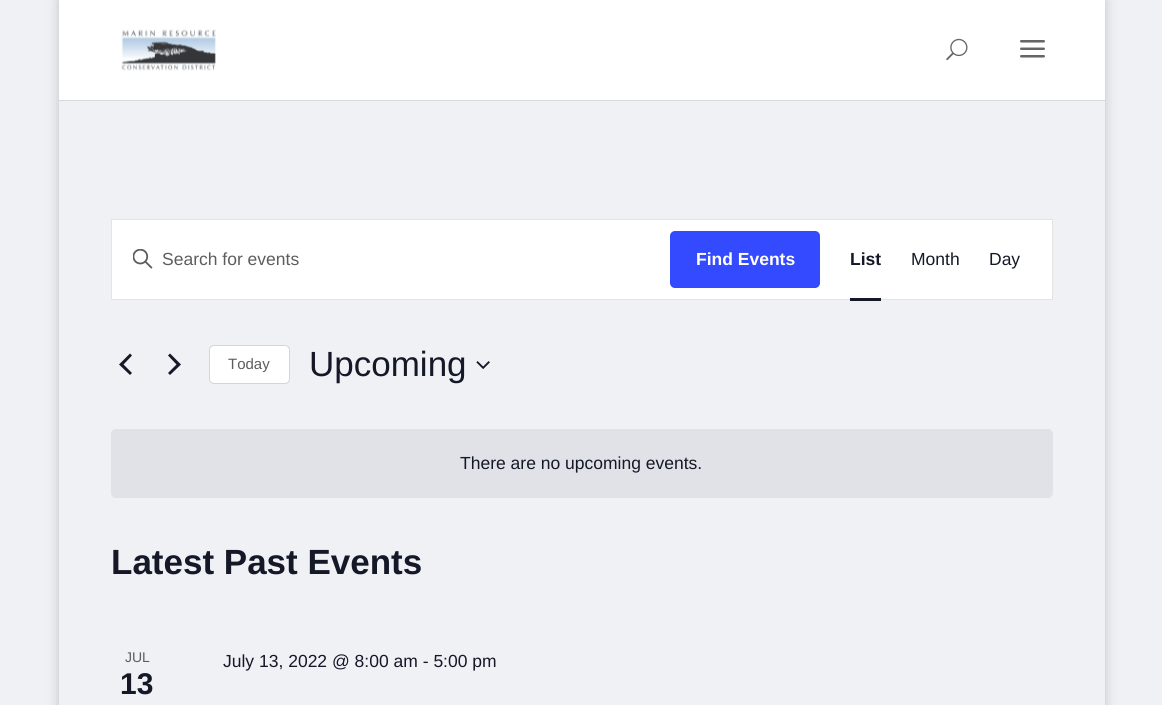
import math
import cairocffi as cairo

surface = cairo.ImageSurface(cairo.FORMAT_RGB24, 1162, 705)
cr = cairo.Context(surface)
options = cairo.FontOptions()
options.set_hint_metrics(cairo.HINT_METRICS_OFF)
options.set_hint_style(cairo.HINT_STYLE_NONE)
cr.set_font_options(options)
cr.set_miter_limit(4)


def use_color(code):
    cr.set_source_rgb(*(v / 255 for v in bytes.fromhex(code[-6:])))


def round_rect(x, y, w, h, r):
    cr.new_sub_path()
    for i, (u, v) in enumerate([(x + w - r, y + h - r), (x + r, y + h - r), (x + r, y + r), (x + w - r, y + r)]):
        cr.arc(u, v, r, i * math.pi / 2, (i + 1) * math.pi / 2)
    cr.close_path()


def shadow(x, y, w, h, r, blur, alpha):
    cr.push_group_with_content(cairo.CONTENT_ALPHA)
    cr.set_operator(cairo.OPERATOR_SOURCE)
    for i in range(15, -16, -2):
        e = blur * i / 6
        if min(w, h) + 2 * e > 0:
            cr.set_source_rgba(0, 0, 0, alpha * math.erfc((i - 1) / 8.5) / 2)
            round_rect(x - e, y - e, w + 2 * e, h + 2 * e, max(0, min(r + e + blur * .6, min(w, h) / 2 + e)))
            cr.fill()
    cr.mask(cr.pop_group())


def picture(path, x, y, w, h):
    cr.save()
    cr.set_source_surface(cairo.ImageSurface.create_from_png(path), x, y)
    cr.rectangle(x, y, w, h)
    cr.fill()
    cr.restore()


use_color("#eff1f5")
cr.paint()
cr.save()
cr.set_fill_rule(cairo.FILL_RULE_EVEN_ODD)
cr.new_path()
cr.move_to(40, 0)
cr.line_to(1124, 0)
cr.line_to(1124, 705)
cr.line_to(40, 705)
cr.close_path()
cr.move_to(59, 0)
cr.line_to(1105, 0)
cr.line_to(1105, 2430)
cr.line_to(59, 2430)
cr.close_path()
cr.clip()
use_color("#000000")
shadow(59, 0, 1046, 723, 0, 6, 0.2)
cr.restore()
use_color("#d7d9dd")
cr.rectangle(59, 100, 1046, 1)
cr.fill()
use_color("#ffffff")
cr.rectangle(59, 0, 1046, 100)
cr.fill()
picture("img1.png", 121, 29, 95, 42)
picture("img2.png", 946, 38, 22, 23)
picture("img3.png", 1020, 40, 25, 18)
cr.rectangle(111.5, 219.5, 941, 80)
cr.fill_preserve()
use_color("#e4e4e4")
cr.set_line_width(1)
cr.stroke()
picture("img4.png", 133, 249, 20, 20)
cr.select_font_face("Liberation Sans")
cr.set_font_size(17.5)
use_color("#5d5d5d")
cr.move_to(162, 265)
cr.show_text("Search for events")
use_color("#334aff")
round_rect(670, 231, 150, 57, 5)
cr.fill()
cr.select_font_face("Liberation Sans", cairo.FONT_SLANT_NORMAL, cairo.FONT_WEIGHT_BOLD)
use_color("#ffffff")
cr.move_to(696, 265)
cr.show_text("Find Events")
use_color("#141827")
cr.move_to(850, 265)
cr.show_text("List")
cr.rectangle(850, 298, 31, 3)
cr.fill()
cr.select_font_face("Liberation Sans")
cr.move_to(911, 265)
cr.show_text("Month")
cr.move_to(989, 265)
cr.show_text("Day")
cr.new_path()
cr.move_to(132, 373)
cr.line_to(130, 375)
cr.line_to(119, 364.5)
cr.line_to(130, 353.5)
cr.line_to(132, 355.5)
cr.line_to(123.5, 364.5)
cr.close_path()
cr.move_to(168, 355.5)
cr.line_to(170, 353.5)
cr.line_to(181, 364.5)
cr.line_to(170, 375)
cr.line_to(168, 373)
cr.line_to(176.5, 364.5)
cr.close_path()
cr.fill()
use_color("#ffffff")
round_rect(209.5, 345.5, 80, 38, 4.5)
cr.fill_preserve()
use_color("#d5d5d5")
cr.stroke()
cr.set_font_size(15)
use_color("#5d5d5d")
cr.move_to(228, 369)
cr.show_text("Today")
cr.set_font_size(35)
use_color("#141827")
cr.move_to(309, 376)
cr.show_text("Upcoming")
picture("img5.png", 476, 361, 14, 8)
use_color("#e0e2e7")
round_rect(111, 429, 942, 69, 5)
cr.fill()
cr.set_font_size(17.5)
use_color("#141827")
cr.move_to(460, 469)
cr.show_text("There are no upcoming events.")
cr.select_font_face("Liberation Sans", cairo.FONT_SLANT_NORMAL, cairo.FONT_WEIGHT_BOLD)
cr.set_font_size(35)
cr.move_to(111, 574)
cr.show_text("Latest Past Events")
cr.select_font_face("Liberation Sans")
cr.set_font_size(14)
use_color("#5d5d5d")
cr.move_to(125, 662)
cr.show_text("JUL")
cr.select_font_face("Liberation Sans", cairo.FONT_SLANT_NORMAL, cairo.FONT_WEIGHT_BOLD)
cr.set_font_size(30)
use_color("#141827")
cr.move_to(120, 694)
cr.show_text("13")
cr.select_font_face("Liberation Sans")
cr.set_font_size(17.5)
cr.move_to(223, 667)
cr.show_text("July 13, 2022 @ 8:00 am - 5:00 pm")
surface.write_to_png("result.png")
